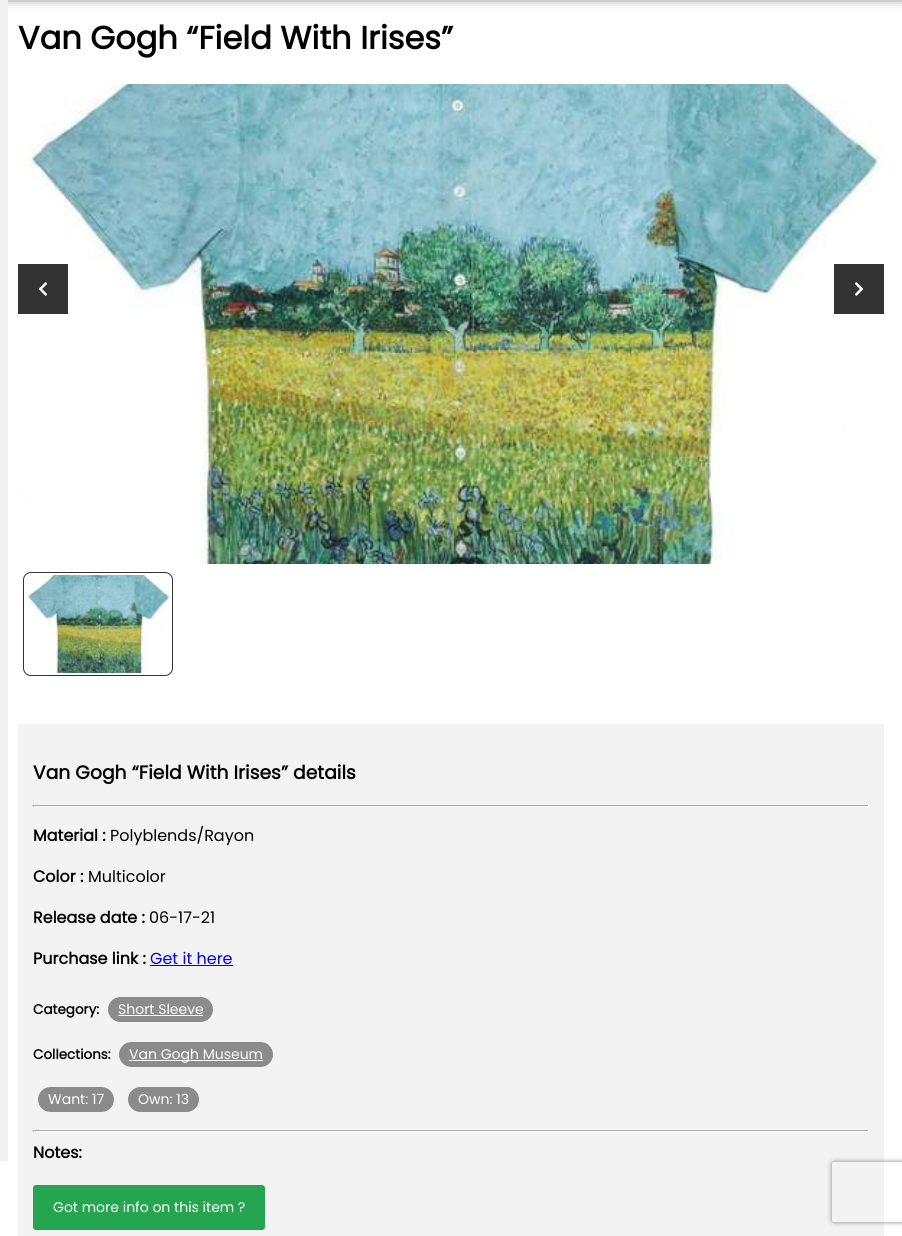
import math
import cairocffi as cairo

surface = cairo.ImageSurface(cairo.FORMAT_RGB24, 902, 1236)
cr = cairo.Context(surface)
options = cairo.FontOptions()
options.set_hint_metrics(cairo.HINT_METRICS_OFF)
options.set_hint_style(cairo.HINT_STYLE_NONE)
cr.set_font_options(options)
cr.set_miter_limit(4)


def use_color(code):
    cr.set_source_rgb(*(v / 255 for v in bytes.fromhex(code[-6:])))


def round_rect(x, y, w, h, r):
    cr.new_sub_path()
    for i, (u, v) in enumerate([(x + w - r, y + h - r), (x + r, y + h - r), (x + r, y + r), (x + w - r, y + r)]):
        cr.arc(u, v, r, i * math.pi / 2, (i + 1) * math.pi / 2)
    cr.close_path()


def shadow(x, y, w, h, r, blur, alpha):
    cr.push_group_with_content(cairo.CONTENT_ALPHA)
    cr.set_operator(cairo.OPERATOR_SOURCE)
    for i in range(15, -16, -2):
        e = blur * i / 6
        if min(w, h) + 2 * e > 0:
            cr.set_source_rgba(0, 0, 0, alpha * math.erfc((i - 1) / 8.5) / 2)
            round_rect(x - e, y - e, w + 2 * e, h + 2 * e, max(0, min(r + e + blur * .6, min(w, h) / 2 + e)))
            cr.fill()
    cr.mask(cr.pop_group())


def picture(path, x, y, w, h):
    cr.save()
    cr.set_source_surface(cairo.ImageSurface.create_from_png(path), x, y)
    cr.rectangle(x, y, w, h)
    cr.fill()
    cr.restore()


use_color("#ffffff")
cr.paint()
use_color("#000000")
shadow(-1, -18, 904, 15, 0, 6, 0.75)
use_color("#f0f0f0")
cr.rectangle(0, 0, 8, 1161)
cr.fill()
cr.select_font_face("Poppins", cairo.FONT_SLANT_NORMAL, cairo.FONT_WEIGHT_BOLD)
cr.set_font_size(32)
use_color("#000000")
cr.move_to(18, 49)
cr.show_text("Van Gogh “Field With Irises”")
picture("img1.png", 18, 84, 866, 480)
use_color("#333333")
cr.rectangle(18, 264, 50, 50)
cr.fill()
picture("img2.png", 38, 282, 10, 14)
cr.rectangle(834, 264, 50, 50)
cr.fill()
picture("img3.png", 854, 282, 10, 14)
round_rect(23.5, 572.5, 149, 103, 7.5)
cr.set_line_width(1)
cr.stroke()
picture("img4.png", 26, 575, 144, 98)
use_color("#f3f3f3")
cr.rectangle(18, 724, 866, 512)
cr.fill()
cr.set_font_size(18.75)
use_color("#000000")
cr.move_to(33, 779)
cr.show_text("Van Gogh “Field With Irises” details")
use_color("#aaaaaa")
cr.rectangle(33, 805, 836, 1)
cr.fill()
use_color("#ffffff")
cr.rectangle(868, 805, 1, 2)
cr.fill()
cr.rectangle(33, 806, 836, 1)
cr.fill()
use_color("#aaaaaa")
cr.rectangle(33, 805, 1, 2)
cr.fill()
cr.set_font_size(16)
use_color("#000000")
cr.move_to(33, 841)
cr.show_text("Material :")
cr.select_font_face("Poppins")
cr.move_to(110, 841)
cr.show_text("Polyblends/Rayon")
cr.select_font_face("Poppins", cairo.FONT_SLANT_NORMAL, cairo.FONT_WEIGHT_BOLD)
cr.move_to(33, 882)
cr.show_text("Color :")
cr.select_font_face("Poppins")
cr.move_to(88, 882)
cr.show_text("Multicolor")
cr.select_font_face("Poppins", cairo.FONT_SLANT_NORMAL, cairo.FONT_WEIGHT_BOLD)
cr.move_to(33, 923)
cr.show_text("Release date :")
cr.select_font_face("Poppins")
cr.move_to(149, 923)
cr.show_text("06-17-21")
cr.select_font_face("Poppins", cairo.FONT_SLANT_NORMAL, cairo.FONT_WEIGHT_BOLD)
cr.move_to(33, 964)
cr.show_text("Purchase link :")
cr.select_font_face("Poppins")
use_color("#0000ee")
cr.move_to(150, 964)
cr.show_text("Get it here")
cr.rectangle(150, 965, 83, 1)
cr.fill()
cr.select_font_face("Poppins", cairo.FONT_SLANT_NORMAL, cairo.FONT_WEIGHT_BOLD)
cr.set_font_size(13.5)
use_color("#000000")
cr.move_to(33, 1014)
cr.show_text("Category:")
use_color("#8b8b8b")
round_rect(108, 997, 105, 25, 12.5)
cr.fill()
cr.select_font_face("Poppins")
cr.set_font_size(14)
use_color("#ffffff")
cr.move_to(118, 1014)
cr.show_text("Short Sleeve")
cr.rectangle(118, 1015, 85, 1)
cr.fill()
cr.select_font_face("Poppins", cairo.FONT_SLANT_NORMAL, cairo.FONT_WEIGHT_BOLD)
cr.set_font_size(13.5)
use_color("#000000")
cr.move_to(33, 1059)
cr.show_text("Collections:")
use_color("#8b8b8b")
round_rect(119, 1042, 154, 25, 12.5)
cr.fill()
use_color("#ffffff")
cr.rectangle(129, 1060, 134, 1)
cr.fill()
cr.select_font_face("Poppins")
cr.set_font_size(14)
cr.move_to(129, 1059)
cr.show_text("Van Gogh Museum")
use_color("#8b8b8b")
round_rect(38, 1087, 76, 25, 12.5)
cr.fill()
use_color("#ffffff")
cr.move_to(48, 1104)
cr.show_text("Want: 17")
use_color("#8b8b8b")
round_rect(128, 1087, 71, 25, 12.5)
cr.fill()
use_color("#ffffff")
cr.move_to(138, 1104)
cr.show_text("Own: 13")
use_color("#aaaaaa")
cr.rectangle(33, 1130, 836, 1)
cr.fill()
use_color("#ffffff")
cr.rectangle(868, 1130, 1, 2)
cr.fill()
cr.rectangle(33, 1131, 836, 1)
cr.fill()
use_color("#aaaaaa")
cr.rectangle(33, 1130, 1, 2)
cr.fill()
cr.select_font_face("Poppins", cairo.FONT_SLANT_NORMAL, cairo.FONT_WEIGHT_BOLD)
cr.set_font_size(16)
use_color("#000000")
cr.move_to(33, 1158)
cr.show_text("Notes:")
use_color("#25a54f")
round_rect(33, 1185, 232, 45, 3)
cr.fill()
cr.select_font_face("Poppins")
cr.set_font_size(14)
use_color("#ffffff")
cr.move_to(53, 1212)
cr.show_text("Got more info on this item ?")
cr.save()
cr.set_fill_rule(cairo.FILL_RULE_EVEN_ODD)
cr.new_path()
cr.move_to(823, 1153)
cr.line_to(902, 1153)
cr.line_to(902, 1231)
cr.line_to(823, 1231)
cr.close_path()
cr.move_to(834, 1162)
cr.line_to(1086, 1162)
cr.curve_to(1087, 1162, 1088, 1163, 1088, 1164)
cr.line_to(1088, 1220)
cr.curve_to(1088, 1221, 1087, 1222, 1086, 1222)
cr.line_to(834, 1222)
cr.curve_to(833, 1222, 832, 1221, 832, 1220)
cr.line_to(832, 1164)
cr.curve_to(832, 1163, 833, 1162, 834, 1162)
cr.close_path()
cr.clip()
use_color("#808080")
shadow(832, 1162, 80, 60, 2, 2.5, 1)
cr.restore()
surface.write_to_png("result.png")
